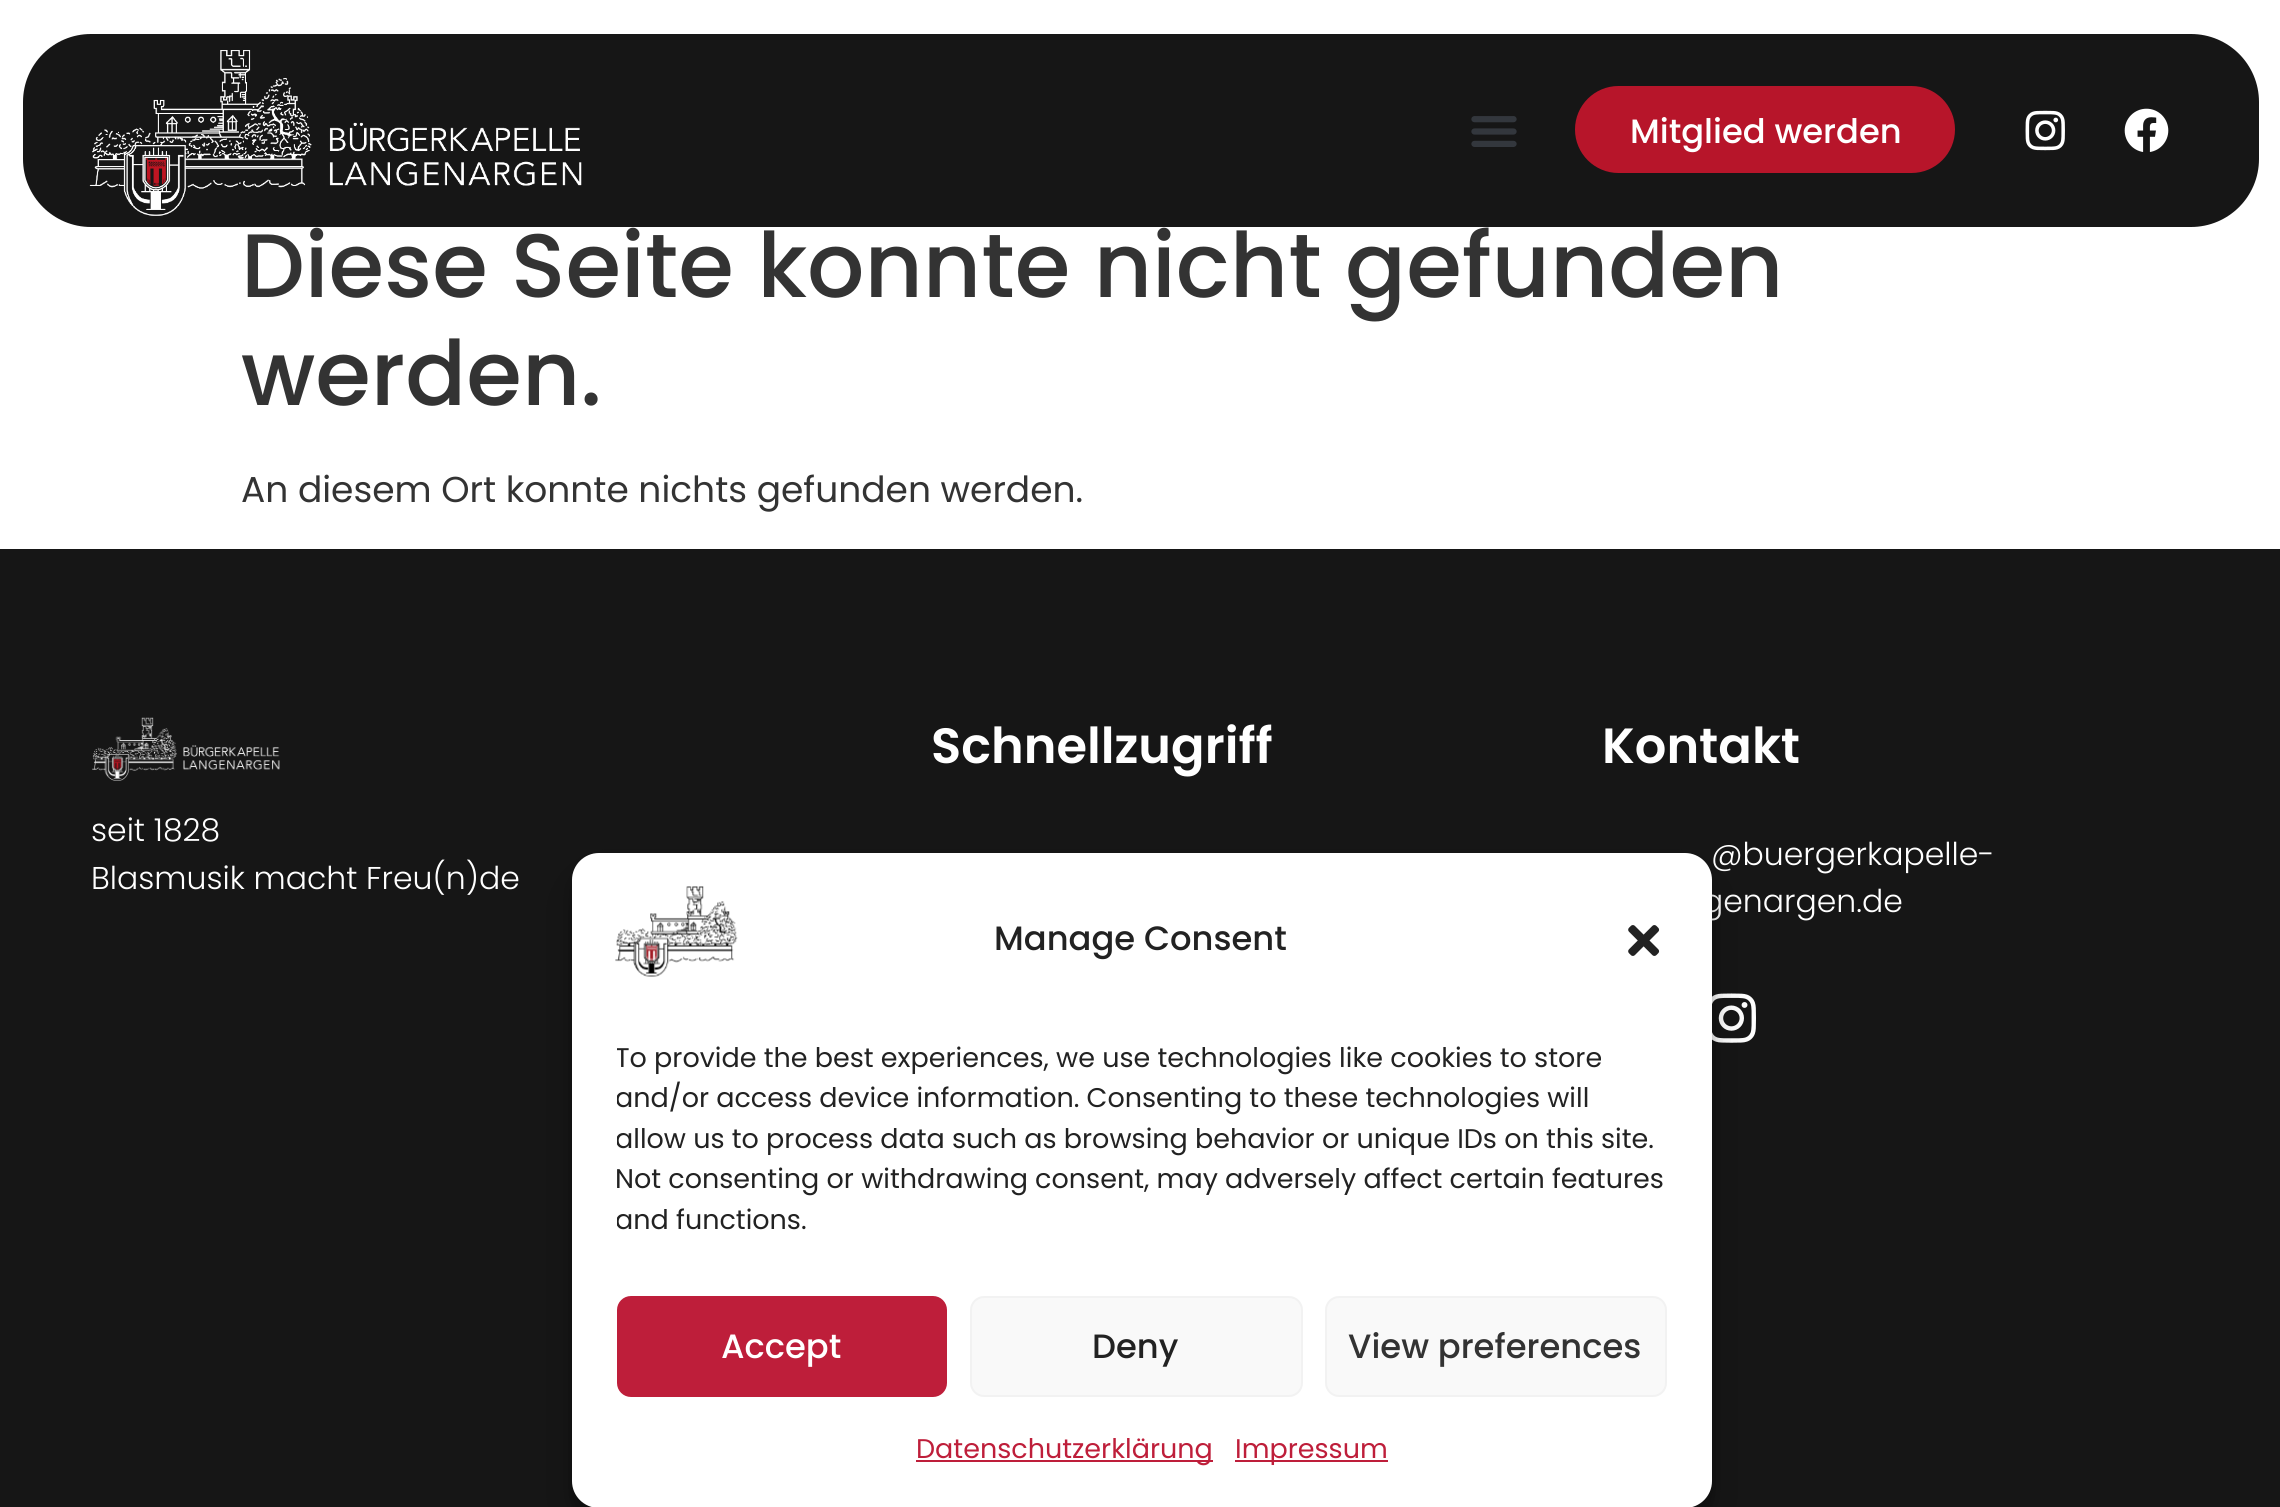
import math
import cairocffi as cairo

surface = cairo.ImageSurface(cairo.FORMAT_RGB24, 2280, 1507)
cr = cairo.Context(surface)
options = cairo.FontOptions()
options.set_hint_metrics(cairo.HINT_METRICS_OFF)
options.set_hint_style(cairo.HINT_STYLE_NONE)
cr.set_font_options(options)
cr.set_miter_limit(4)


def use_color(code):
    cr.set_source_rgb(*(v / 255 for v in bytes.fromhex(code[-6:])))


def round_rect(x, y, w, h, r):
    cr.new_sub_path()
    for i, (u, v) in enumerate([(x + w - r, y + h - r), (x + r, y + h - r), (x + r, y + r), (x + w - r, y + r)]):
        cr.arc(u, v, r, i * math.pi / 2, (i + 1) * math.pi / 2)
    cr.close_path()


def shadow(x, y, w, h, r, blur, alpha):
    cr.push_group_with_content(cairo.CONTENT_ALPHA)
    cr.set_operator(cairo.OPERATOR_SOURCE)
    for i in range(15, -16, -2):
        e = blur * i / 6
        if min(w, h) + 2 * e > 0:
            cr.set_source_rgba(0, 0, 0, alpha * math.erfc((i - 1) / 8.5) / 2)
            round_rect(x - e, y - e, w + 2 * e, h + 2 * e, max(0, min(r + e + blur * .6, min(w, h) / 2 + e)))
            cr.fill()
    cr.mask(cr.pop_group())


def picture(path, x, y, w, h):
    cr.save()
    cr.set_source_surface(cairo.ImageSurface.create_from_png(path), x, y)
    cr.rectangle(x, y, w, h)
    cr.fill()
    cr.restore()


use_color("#ffffff")
cr.paint()
use_color("#161616")
round_rect(23, 34, 2236, 193, 68)
cr.fill()
picture("img1.png", 89, 50, 493, 166)
picture("img2.png", 1471, 116, 46, 31)
use_color("#b7152a")
round_rect(1575, 86, 380, 87, 43.5)
cr.fill()
cr.select_font_face("Poppins Medium")
cr.set_font_size(33.75)
use_color("#ffffff")
cr.move_to(1630, 143)
cr.show_text("Mitglied werden")
picture("img3.png", 2025, 110, 40, 41)
picture("img4.png", 2124, 108, 45, 44)
cr.set_font_size(90)
use_color("#333333")
cr.move_to(241, 297)
cr.show_text("Diese Seite konnte nicht gefunden")
cr.move_to(241, 405)
cr.show_text("werden.")
cr.select_font_face("Poppins")
cr.set_font_size(36)
cr.move_to(241, 502)
cr.show_text("An diesem Ort konnte nichts gefunden werden.")
use_color("#161616")
cr.rectangle(0, 549, 2280, 958)
cr.fill()
picture("img5.png", 92, 717, 188, 64)
cr.select_font_face("Poppins Light")
cr.set_font_size(31.5)
use_color("#ffffff")
cr.move_to(91, 841)
cr.show_text("seit 1828")
cr.move_to(91, 889)
cr.show_text("Blasmusik macht Freu(n)de")
cr.select_font_face("Poppins SemiBold")
cr.set_font_size(49.5)
cr.move_to(931, 763)
cr.show_text("Schnellzugriff")
cr.move_to(1602, 763)
cr.show_text("Kontakt")
cr.select_font_face("Poppins Light")
cr.set_font_size(31.5)
cr.move_to(1711, 865)
cr.show_text("@buergerkapelle-")
cr.move_to(1702, 912)
cr.show_text("genargen.de")
picture("img6.png", 1712, 993, 44, 50)
cr.save()
cr.set_fill_rule(cairo.FILL_RULE_EVEN_ODD)
cr.new_path()
cr.move_to(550, 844)
cr.line_to(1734, 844)
cr.line_to(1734, 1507)
cr.line_to(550, 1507)
cr.close_path()
cr.move_to(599, 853)
cr.line_to(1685, 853)
cr.curve_to(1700, 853, 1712, 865, 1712, 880)
cr.line_to(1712, 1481)
cr.curve_to(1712, 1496, 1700, 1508, 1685, 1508)
cr.line_to(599, 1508)
cr.curve_to(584, 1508, 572, 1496, 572, 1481)
cr.line_to(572, 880)
cr.curve_to(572, 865, 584, 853, 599, 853)
cr.close_path()
cr.clip()
use_color("#000000")
shadow(572, 866, 1140, 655, 27, 7, 0.23)
cr.restore()
cr.save()
cr.set_fill_rule(cairo.FILL_RULE_EVEN_ODD)
cr.new_path()
cr.move_to(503, 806)
cr.line_to(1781, 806)
cr.line_to(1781, 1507)
cr.line_to(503, 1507)
cr.close_path()
cr.move_to(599, 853)
cr.line_to(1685, 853)
cr.curve_to(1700, 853, 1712, 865, 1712, 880)
cr.line_to(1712, 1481)
cr.curve_to(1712, 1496, 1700, 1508, 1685, 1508)
cr.line_to(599, 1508)
cr.curve_to(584, 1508, 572, 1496, 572, 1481)
cr.line_to(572, 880)
cr.curve_to(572, 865, 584, 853, 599, 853)
cr.close_path()
cr.clip()
use_color("#000000")
shadow(572, 875, 1140, 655, 27, 22.5, 0.19)
cr.restore()
round_rect(572, 853, 1140, 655, 27)
cr.fill()
picture("img7.png", 615, 886, 123, 91)
cr.select_font_face("Poppins Medium")
cr.set_font_size(33.75)
use_color("#222222")
cr.move_to(994, 950)
cr.show_text("Manage Consent")
picture("img8.png", 1628, 925, 32, 31)
cr.save()
cr.rectangle(617, 1037, 1050, 214)
cr.clip()
cr.select_font_face("Poppins")
cr.set_font_size(27)
cr.move_to(615, 1067)
cr.show_text("To provide the best experiences, we use technologies like cookies to store")
cr.move_to(615, 1107)
cr.show_text("and/or access device information. Consenting to these technologies will")
cr.move_to(615, 1148)
cr.show_text("allow us to process data such as browsing behavior or unique IDs on this site.")
cr.restore()
cr.select_font_face("Poppins")
cr.set_font_size(27)
cr.move_to(615, 1188)
cr.show_text("Not consenting or withdrawing consent, may adversely affect certain features")
cr.save()
cr.rectangle(617, 1037, 1050, 214)
cr.clip()
cr.move_to(615, 1229)
cr.show_text("and functions.")
cr.restore()
use_color("#be1e3a")
round_rect(618, 1297, 328, 99, 13)
cr.fill_preserve()
cr.stroke()
cr.select_font_face("Poppins Medium")
cr.set_font_size(33.75)
use_color("#ffffff")
cr.move_to(721, 1358)
cr.show_text("Accept")
use_color("#f9f9f9")
round_rect(971, 1297, 331, 99, 13)
cr.fill_preserve()
use_color("#f2f2f2")
cr.stroke()
use_color("#222222")
cr.move_to(1092, 1358)
cr.show_text("Deny")
use_color("#f9f9f9")
round_rect(1326, 1297, 340, 99, 13)
cr.fill_preserve()
use_color("#f2f2f2")
cr.stroke()
use_color("#333333")
cr.move_to(1348, 1358)
cr.show_text("View preferences")
use_color("#be1e3a")
cr.rectangle(916, 1460, 297, 2)
cr.fill()
cr.select_font_face("Poppins")
cr.set_font_size(27)
cr.move_to(916, 1458)
cr.show_text("Datenschutzerklärung")
cr.rectangle(1235, 1460, 153, 2)
cr.fill()
cr.move_to(1235, 1458)
cr.show_text("Impressum")
surface.write_to_png("result.png")
